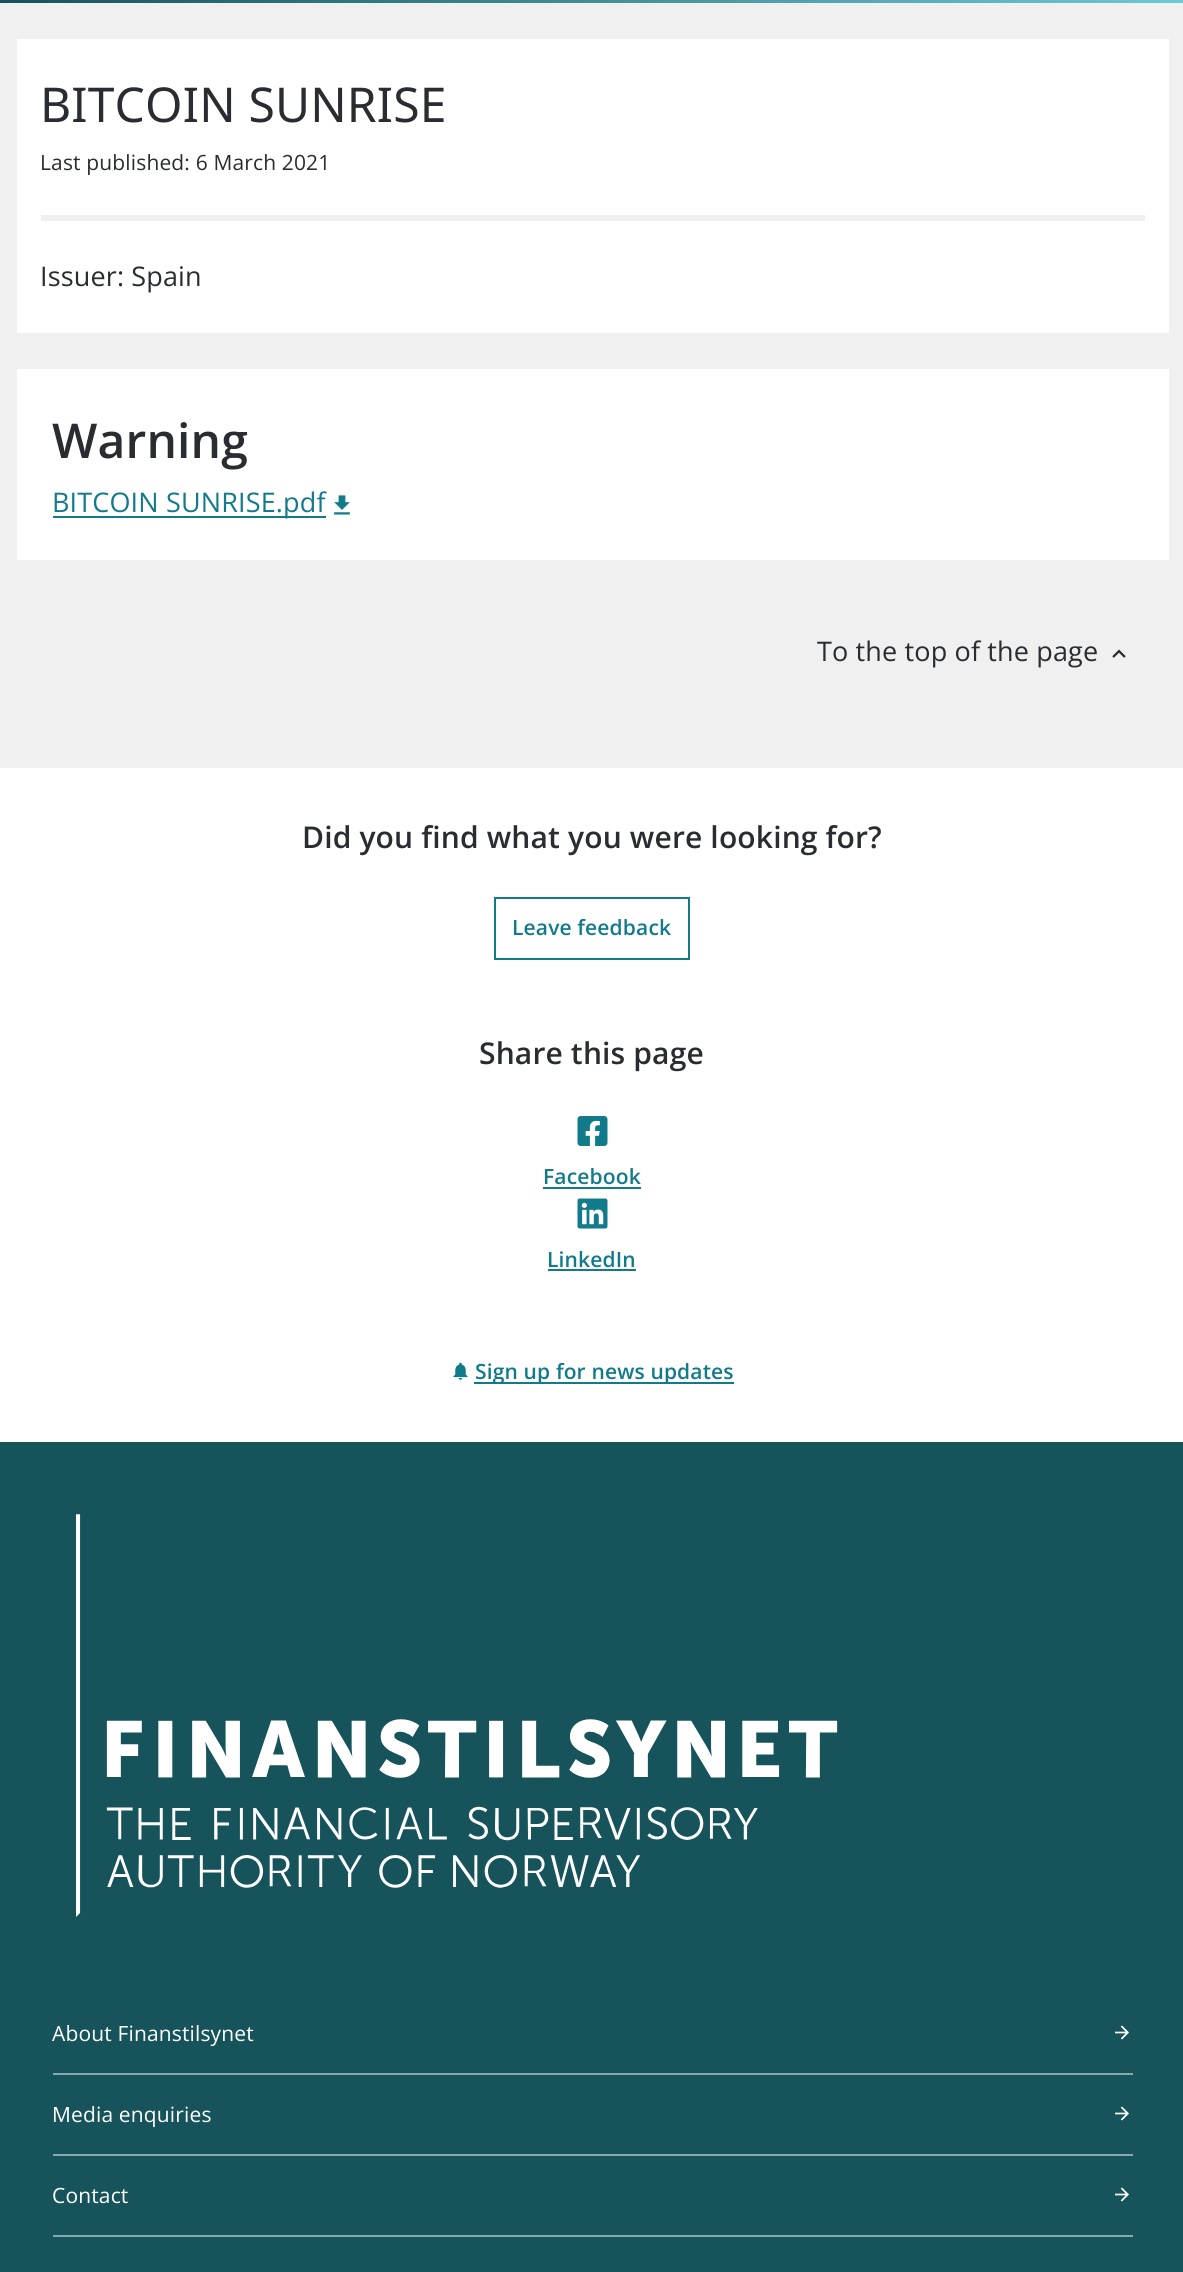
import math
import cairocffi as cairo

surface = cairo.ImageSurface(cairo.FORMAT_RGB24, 1183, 2272)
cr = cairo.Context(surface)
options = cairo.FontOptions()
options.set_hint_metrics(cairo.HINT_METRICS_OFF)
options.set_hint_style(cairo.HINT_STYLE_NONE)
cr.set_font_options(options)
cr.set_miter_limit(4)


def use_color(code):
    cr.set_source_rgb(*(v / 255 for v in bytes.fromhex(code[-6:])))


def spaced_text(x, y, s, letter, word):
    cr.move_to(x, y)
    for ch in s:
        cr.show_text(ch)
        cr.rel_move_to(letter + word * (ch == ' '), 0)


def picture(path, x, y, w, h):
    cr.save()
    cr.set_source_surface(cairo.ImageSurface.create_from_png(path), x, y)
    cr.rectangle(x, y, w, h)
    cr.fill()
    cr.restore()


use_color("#f0f0f0")
cr.paint()
gradient = cairo.LinearGradient(0, -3, 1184, -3)
gradient.add_color_stop_rgba(0, 0.086, 0.325, 0.357, 1)
gradient.add_color_stop_rgba(1, 0.427, 0.784, 0.843, 1)
cr.set_source(gradient)
cr.rectangle(0, 0, 1183, 3)
cr.fill()
use_color("#ffffff")
cr.rectangle(17, 39, 1152, 294)
cr.fill()
cr.select_font_face("Noto Sans")
cr.set_font_size(48)
use_color("#292c30")
spaced_text(40, 122, "BITCOIN SUNRISE", 0.15, 0)
cr.select_font_face("Open Sans")
cr.set_font_size(21)
spaced_text(40, 170, "Last published: 6 March 2021", 0.15, 0)
use_color("#f0f0f0")
cr.rectangle(41, 215, 1104, 6)
cr.fill()
cr.set_font_size(27)
use_color("#292c30")
spaced_text(40, 286, "Issuer: Spain", 0.15, 0)
use_color("#ffffff")
cr.rectangle(17, 369, 1152, 191)
cr.fill()
cr.select_font_face("Open Sans SemiBold")
cr.set_font_size(48)
use_color("#292c30")
spaced_text(52, 458, "Warning", 0.15, 0)
use_color("#117b8c")
cr.rectangle(53, 516, 273, 2)
cr.fill()
cr.select_font_face("Open Sans")
cr.set_font_size(27)
spaced_text(52, 512, "BITCOIN SUNRISE.pdf", 0.15, 0)
picture("img1.png", 334, 495, 16, 20)
use_color("#292c30")
spaced_text(817, 661, "To the top of the page", 0.15, 0)
picture("img2.png", 1112, 649, 14, 9)
use_color("#ffffff")
cr.rectangle(0, 768, 1183, 674)
cr.fill()
cr.select_font_face("Open Sans SemiBold")
cr.set_font_size(30)
use_color("#292c30")
spaced_text(302, 848, "Did you find what you were looking for?", 0.15, 0)
cr.rectangle(495, 898, 194, 61)
use_color("#117b8c")
cr.stroke()
cr.set_font_size(21)
spaced_text(512, 935, "Leave feedback", 0.15, 0)
cr.set_font_size(30)
use_color("#292c30")
spaced_text(479, 1064, "Share this page", 0.15, 0)
picture("img3.png", 577, 1116, 31, 30)
cr.set_font_size(21)
use_color("#117b8c")
spaced_text(543, 1184, "Facebook", 0.15, 0)
cr.rectangle(543, 1187, 98, 2)
cr.fill()
picture("img4.png", 577, 1198, 31, 31)
spaced_text(547, 1267, "LinkedIn", 0.15, 0)
cr.rectangle(548, 1269, 88, 2)
cr.fill()
picture("img5.png", 453, 1362, 15, 18)
cr.rectangle(474, 1382, 260, 2)
cr.fill()
spaced_text(475, 1379, "Sign up for news updates", 0.15, 0)
use_color("#16535b")
cr.rectangle(0, 1442, 1183, 830)
cr.fill()
picture("img6.png", 76, 1514, 762, 403)
use_color("#8ba9ad")
cr.rectangle(53, 2073, 1080, 2)
cr.fill()
cr.select_font_face("Open Sans")
use_color("#ffffff")
spaced_text(52, 2041, "About Finanstilsynet", 0.15, 0)
picture("img7.png", 1115, 2025, 14, 15)
use_color("#8ba9ad")
cr.rectangle(53, 2154, 1080, 2)
cr.fill()
use_color("#ffffff")
spaced_text(52, 2122, "Media enquiries", 0.15, 0)
picture("img7.png", 1115, 2106, 14, 15)
use_color("#8ba9ad")
cr.rectangle(53, 2235, 1080, 2)
cr.fill()
use_color("#ffffff")
spaced_text(52, 2203, "Contact", 0.15, 0)
picture("img7.png", 1115, 2187, 14, 15)
surface.write_to_png("result.png")
